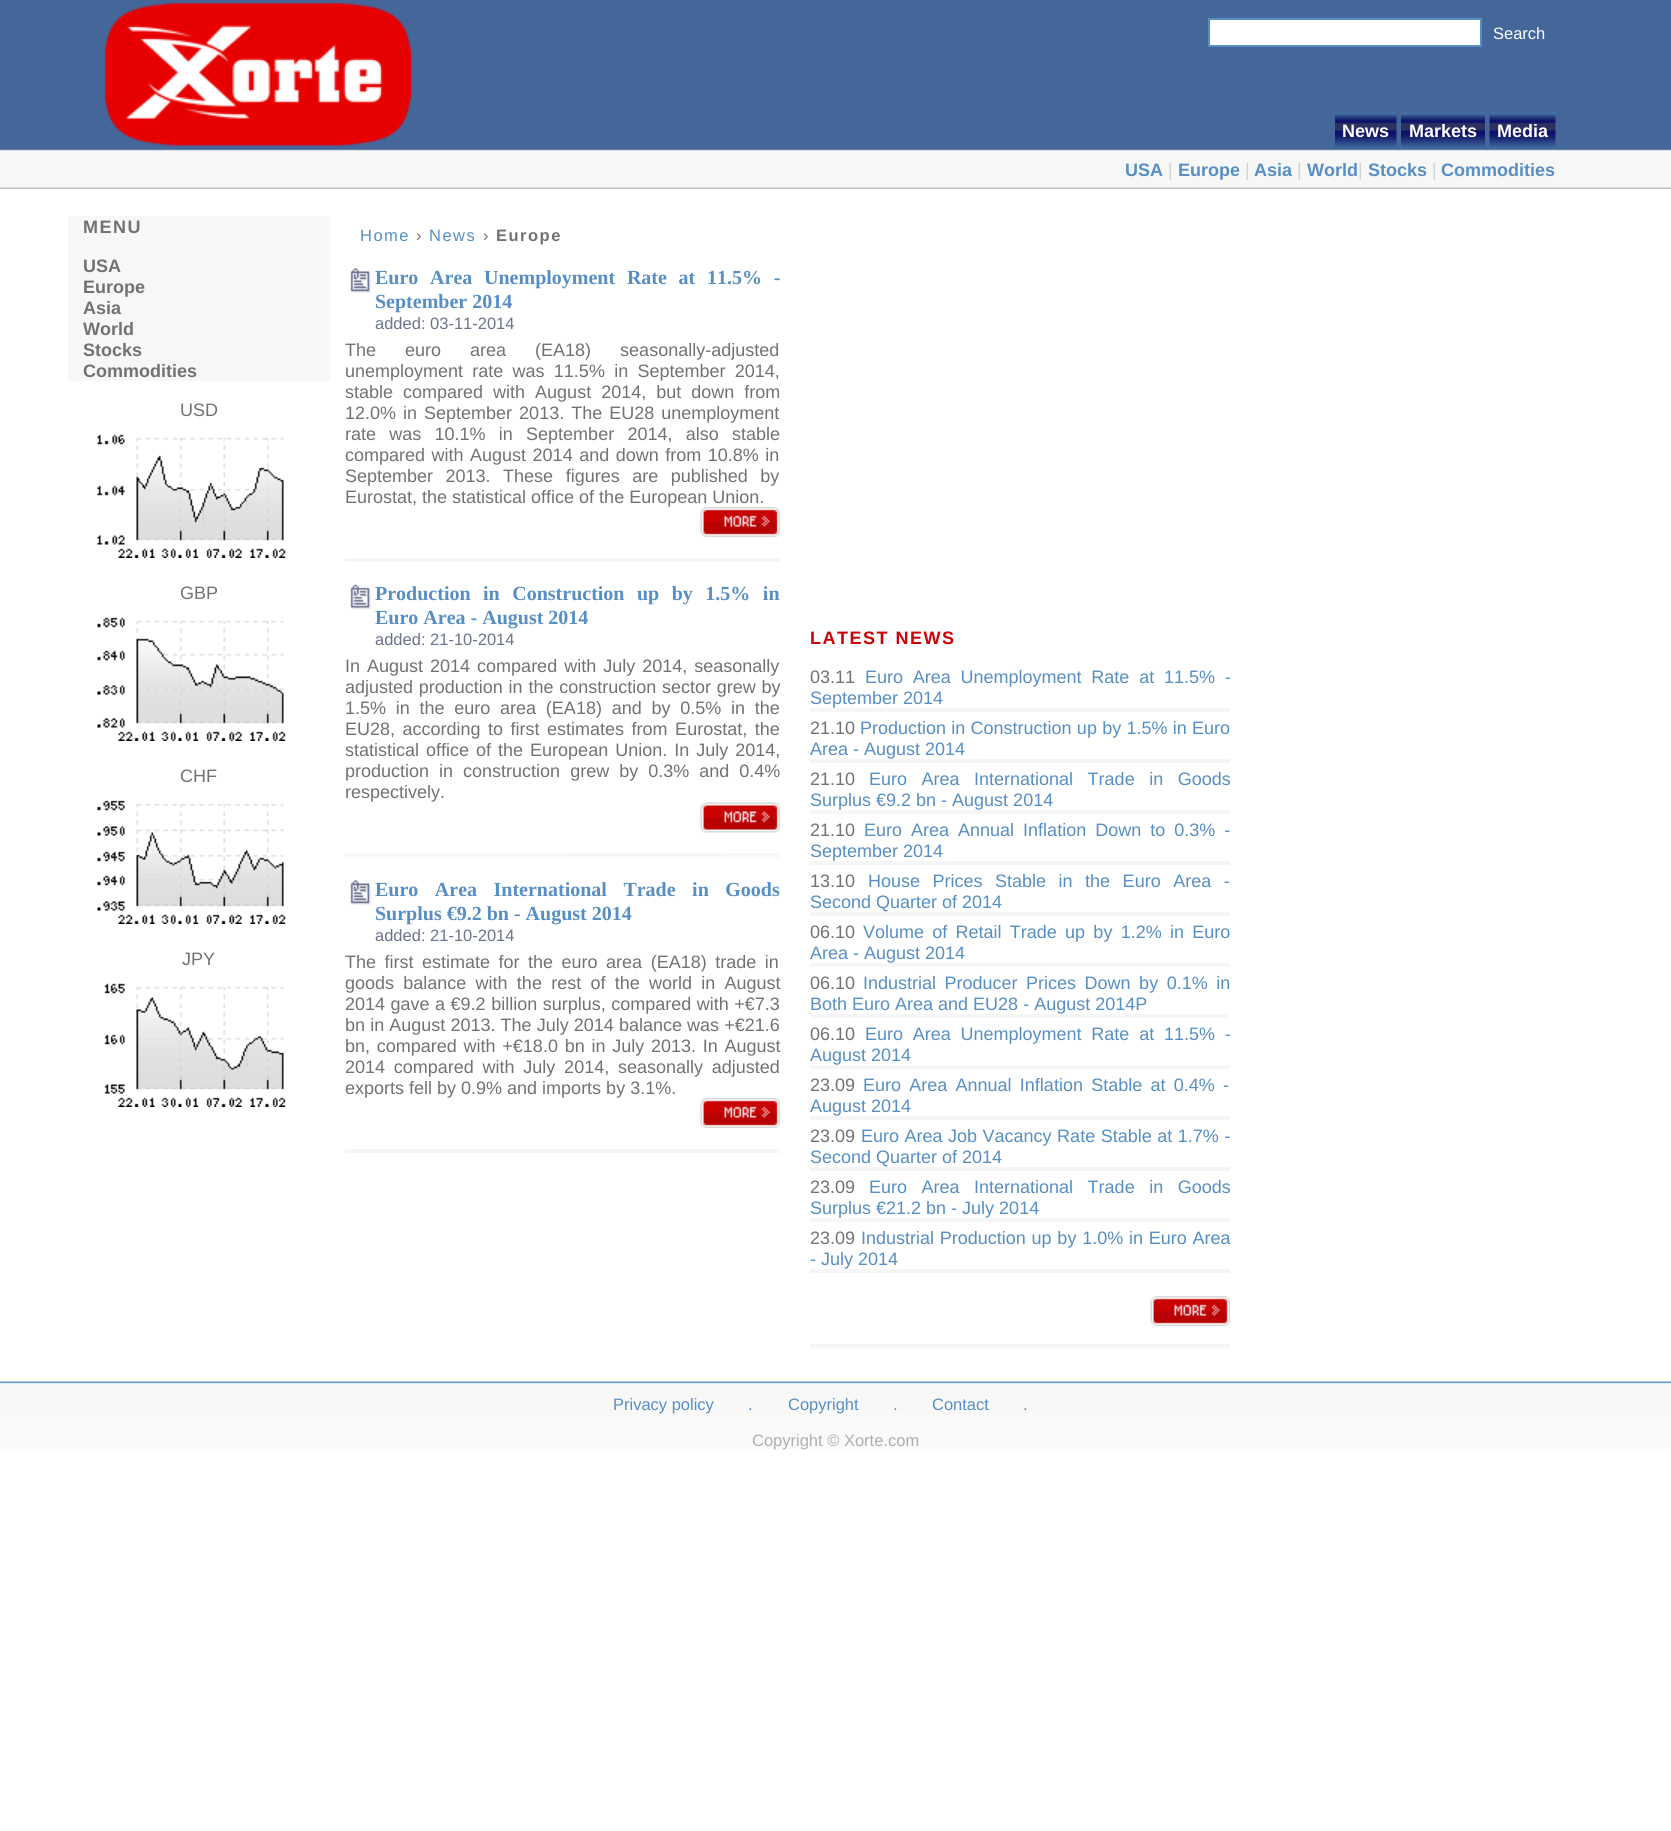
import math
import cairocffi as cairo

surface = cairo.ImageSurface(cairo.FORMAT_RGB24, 1671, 1831)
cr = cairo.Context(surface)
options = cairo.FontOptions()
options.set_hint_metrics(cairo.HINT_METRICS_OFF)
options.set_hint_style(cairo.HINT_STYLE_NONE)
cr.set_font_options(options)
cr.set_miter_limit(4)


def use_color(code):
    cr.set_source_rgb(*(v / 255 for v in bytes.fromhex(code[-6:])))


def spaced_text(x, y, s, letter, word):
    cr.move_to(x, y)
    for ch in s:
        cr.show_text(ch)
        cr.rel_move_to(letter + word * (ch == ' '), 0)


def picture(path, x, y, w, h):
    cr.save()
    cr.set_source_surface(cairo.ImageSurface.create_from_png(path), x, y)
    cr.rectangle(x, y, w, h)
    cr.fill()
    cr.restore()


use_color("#ffffff")
cr.paint()
picture("img1.png", 0, 0, 1671, 189)
picture("img2.png", 104, 2, 308, 144)
use_color("#ffffff")
cr.rectangle(1209, 19, 272, 27)
cr.fill_preserve()
use_color("#578ec3")
cr.stroke()
cr.select_font_face("Liberation Sans")
cr.set_font_size(16.5)
use_color("#ffffff")
cr.move_to(1493, 39)
cr.show_text("Search")
picture("img3.png", 1335, 112, 62, 37)
picture("img4.png", 1401, 112, 84, 37)
picture("img5.png", 1489, 112, 67, 37)
cr.select_font_face("Liberation Sans", cairo.FONT_SLANT_NORMAL, cairo.FONT_WEIGHT_BOLD)
cr.set_font_size(18)
cr.move_to(1342, 137)
cr.show_text("News")
cr.move_to(1409, 137)
cr.show_text("Markets")
cr.move_to(1497, 137)
cr.show_text("Media")
use_color("#578ec3")
cr.move_to(1125, 176)
cr.show_text("USA")
cr.select_font_face("Liberation Sans")
use_color("#d3d3d3")
cr.move_to(1168, 176)
cr.show_text("|")
cr.select_font_face("Liberation Sans", cairo.FONT_SLANT_NORMAL, cairo.FONT_WEIGHT_BOLD)
use_color("#578ec3")
cr.move_to(1178, 176)
cr.show_text("Europe")
cr.select_font_face("Liberation Sans")
use_color("#d3d3d3")
cr.move_to(1245, 176)
cr.show_text("|")
cr.select_font_face("Liberation Sans", cairo.FONT_SLANT_NORMAL, cairo.FONT_WEIGHT_BOLD)
use_color("#578ec3")
cr.move_to(1254, 176)
cr.show_text("Asia")
cr.select_font_face("Liberation Sans")
use_color("#d3d3d3")
cr.move_to(1297, 176)
cr.show_text("|")
cr.select_font_face("Liberation Sans", cairo.FONT_SLANT_NORMAL, cairo.FONT_WEIGHT_BOLD)
use_color("#578ec3")
cr.move_to(1307, 176)
cr.show_text("World")
cr.select_font_face("Liberation Sans")
use_color("#d3d3d3")
cr.move_to(1358, 176)
cr.show_text("|")
cr.select_font_face("Liberation Sans", cairo.FONT_SLANT_NORMAL, cairo.FONT_WEIGHT_BOLD)
use_color("#578ec3")
cr.move_to(1368, 176)
cr.show_text("Stocks")
cr.select_font_face("Liberation Sans")
use_color("#d3d3d3")
cr.move_to(1432, 176)
cr.show_text("|")
cr.select_font_face("Liberation Sans", cairo.FONT_SLANT_NORMAL, cairo.FONT_WEIGHT_BOLD)
use_color("#578ec3")
cr.move_to(1441, 176)
cr.show_text("Commodities")
use_color("#f7f7f7")
cr.rectangle(68, 216, 262, 165)
cr.fill()
use_color("#727272")
spaced_text(83, 233, "MENU", 1.5, 0)
cr.move_to(83, 272)
cr.show_text("USA")
cr.move_to(83, 293)
cr.show_text("Europe")
cr.move_to(83, 314)
cr.show_text("Asia")
cr.move_to(83, 335)
cr.show_text("World")
cr.move_to(83, 356)
cr.show_text("Stocks")
cr.move_to(83, 377)
cr.show_text("Commodities")
cr.select_font_face("Liberation Sans")
cr.move_to(180, 416)
cr.show_text("USD")
picture("img6.png", 97, 434, 189, 124)
cr.move_to(180, 599)
cr.show_text("GBP")
picture("img7.png", 97, 617, 189, 124)
cr.move_to(180, 782)
cr.show_text("CHF")
picture("img8.png", 97, 800, 189, 124)
cr.move_to(182, 965)
cr.show_text("JPY")
picture("img9.png", 104, 983, 182, 124)
cr.set_font_size(16.5)
use_color("#578ec3")
spaced_text(360, 241, "Home", 1.5, 0)
use_color("#727272")
spaced_text(416, 241, "›", 1.5, 0)
use_color("#578ec3")
spaced_text(429, 241, "News", 1.5, 0)
use_color("#727272")
spaced_text(483, 241, "›", 1.5, 0)
cr.select_font_face("Liberation Sans", cairo.FONT_SLANT_NORMAL, cairo.FONT_WEIGHT_BOLD)
spaced_text(496, 241, "Europe", 1.5, 0)
picture("img10.png", 350, 268, 21, 25)
cr.select_font_face("Liberation Serif", cairo.FONT_SLANT_NORMAL, cairo.FONT_WEIGHT_BOLD)
cr.set_font_size(20)
use_color("#578ec3")
spaced_text(375, 284, "Euro Area Unemployment Rate at 11.5% -", 0, 6.75)
cr.move_to(375, 308)
cr.show_text("September 2014")
cr.select_font_face("Liberation Sans")
cr.set_font_size(16.5)
use_color("#6c738c")
cr.move_to(375, 329)
cr.show_text("added: 03-11-2014")
cr.set_font_size(18)
use_color("#727272")
spaced_text(345, 356, "The euro area (EA18) seasonally-adjusted", 0, 24)
spaced_text(345, 377, "unemployment rate was 11.5% in September 2014,", 0, 4.25)
spaced_text(345, 398, "stable compared with August 2014, but down from", 0, 5)
spaced_text(345, 419, "12.0% in September 2013. The EU28 unemployment", 0, 2)
spaced_text(345, 440, "rate was 10.1% in September 2014, also stable", 0, 8.25)
spaced_text(345, 461, "compared with August 2014 and down from 10.8% in", 0, 1.5)
spaced_text(345, 482, "September 2013. These figures are published by", 0, 7.5)
cr.move_to(345, 503)
cr.show_text("Eurostat, the statistical office of the European Union.")
picture("img11.png", 700, 507, 80, 30)
use_color("#f6f6f6")
cr.rectangle(345, 558, 435, 4)
cr.fill()
picture("img12.png", 350, 584, 21, 26)
cr.select_font_face("Liberation Serif", cairo.FONT_SLANT_NORMAL, cairo.FONT_WEIGHT_BOLD)
cr.set_font_size(20)
use_color("#578ec3")
spaced_text(375, 600, "Production in Construction up by 1.5% in", 0, 7.5)
cr.move_to(375, 624)
cr.show_text("Euro Area - August 2014")
cr.select_font_face("Liberation Sans")
cr.set_font_size(16.5)
use_color("#6c738c")
cr.move_to(375, 645)
cr.show_text("added: 21-10-2014")
cr.set_font_size(18)
use_color("#727272")
spaced_text(345, 672, "In August 2014 compared with July 2014, seasonally", 0, 2)
spaced_text(345, 693, "adjusted production in the construction sector grew by", 0, 0.75)
spaced_text(345, 714, "1.5% in the euro area (EA18) and by 0.5% in the", 0, 4.75)
spaced_text(345, 735, "EU28, according to first estimates from Eurostat, the", 0, 2.5)
spaced_text(345, 756, "statistical office of the European Union. In July 2014,", 0, 2)
spaced_text(345, 777, "production in construction grew by 0.3% and 0.4%", 0, 5)
cr.move_to(345, 798)
cr.show_text("respectively.")
picture("img13.png", 700, 802, 80, 31)
picture("img14.png", 345, 853, 435, 5)
picture("img10.png", 350, 880, 21, 25)
cr.select_font_face("Liberation Serif", cairo.FONT_SLANT_NORMAL, cairo.FONT_WEIGHT_BOLD)
cr.set_font_size(20)
use_color("#578ec3")
spaced_text(375, 896, "Euro Area International Trade in Goods", 0, 11.5)
cr.move_to(375, 920)
cr.show_text("Surplus €9.2 bn - August 2014")
cr.select_font_face("Liberation Sans")
cr.set_font_size(16.5)
use_color("#6c738c")
cr.move_to(375, 941)
cr.show_text("added: 21-10-2014")
cr.set_font_size(18)
use_color("#727272")
spaced_text(345, 968, "The first estimate for the euro area (EA18) trade in", 0, 3.5)
spaced_text(345, 989, "goods balance with the rest of the world in August", 0, 4.25)
spaced_text(345, 1010, "2014 gave a €9.2 billion surplus, compared with +€7.3", 0, 0.5)
spaced_text(345, 1031, "bn in August 2013. The July 2014 balance was +€21.6", 0, 0.1)
spaced_text(345, 1052, "bn, compared with +€18.0 bn in July 2013. In August", 0, 1.75)
spaced_text(345, 1073, "2014 compared with July 2014, seasonally adjusted", 0, 3.75)
cr.move_to(345, 1094)
cr.show_text("exports fell by 0.9% and imports by 3.1%.")
picture("img11.png", 700, 1098, 80, 30)
use_color("#f6f6f6")
cr.rectangle(345, 1149, 435, 4)
cr.fill()
cr.select_font_face("Liberation Sans", cairo.FONT_SLANT_NORMAL, cairo.FONT_WEIGHT_BOLD)
use_color("#c90304")
spaced_text(810, 644, "LATEST NEWS", 1.5, 0)
cr.select_font_face("Liberation Sans")
use_color("#727272")
cr.move_to(810, 683)
cr.show_text("03.11")
use_color("#578ec3")
spaced_text(865, 683, "Euro Area Unemployment Rate at 11.5% -", 0, 4.75)
cr.move_to(810, 704)
cr.show_text("September 2014")
use_color("#f6f6f6")
cr.rectangle(810, 708, 420, 4)
cr.fill()
use_color("#727272")
cr.move_to(810, 734)
cr.show_text("21.10")
use_color("#578ec3")
spaced_text(860, 734, "Production in Construction up by 1.5% in Euro", 0, 0.25)
cr.move_to(810, 755)
cr.show_text("Area - August 2014")
use_color("#f6f6f6")
cr.rectangle(810, 759, 420, 4)
cr.fill()
use_color("#727272")
cr.move_to(810, 785)
cr.show_text("21.10")
use_color("#578ec3")
spaced_text(869, 785, "Euro Area International Trade in Goods", 0, 9.5)
cr.move_to(810, 806)
cr.show_text("Surplus €9.2 bn - August 2014")
use_color("#f6f6f6")
cr.rectangle(810, 810, 420, 4)
cr.fill()
use_color("#727272")
cr.move_to(810, 836)
cr.show_text("21.10")
use_color("#578ec3")
spaced_text(864, 836, "Euro Area Annual Inflation Down to 0.3% -", 0, 4)
cr.move_to(810, 857)
cr.show_text("September 2014")
use_color("#f6f6f6")
cr.rectangle(810, 861, 420, 4)
cr.fill()
use_color("#727272")
cr.move_to(810, 887)
cr.show_text("13.10")
use_color("#578ec3")
spaced_text(868, 887, "House Prices Stable in the Euro Area -", 0, 7.5)
cr.move_to(810, 908)
cr.show_text("Second Quarter of 2014")
use_color("#f6f6f6")
cr.rectangle(810, 912, 420, 4)
cr.fill()
use_color("#727272")
cr.move_to(810, 938)
cr.show_text("06.10")
use_color("#578ec3")
spaced_text(863, 938, "Volume of Retail Trade up by 1.2% in Euro", 0, 3.25)
cr.move_to(810, 959)
cr.show_text("Area - August 2014")
use_color("#f6f6f6")
cr.rectangle(810, 963, 420, 4)
cr.fill()
use_color("#727272")
cr.move_to(810, 989)
cr.show_text("06.10")
use_color("#578ec3")
spaced_text(863, 989, "Industrial Producer Prices Down by 0.1% in", 0, 3.5)
cr.move_to(810, 1010)
cr.show_text("Both Euro Area and EU28 - August 2014P")
use_color("#f6f6f6")
cr.rectangle(810, 1014, 420, 4)
cr.fill()
use_color("#727272")
cr.move_to(810, 1040)
cr.show_text("06.10")
use_color("#578ec3")
spaced_text(865, 1040, "Euro Area Unemployment Rate at 11.5% -", 0, 4.75)
cr.move_to(810, 1061)
cr.show_text("August 2014")
use_color("#f6f6f6")
cr.rectangle(810, 1065, 420, 4)
cr.fill()
use_color("#727272")
cr.move_to(810, 1091)
cr.show_text("23.09")
use_color("#578ec3")
spaced_text(863, 1091, "Euro Area Annual Inflation Stable at 0.4% -", 0, 3.25)
cr.move_to(810, 1112)
cr.show_text("August 2014")
use_color("#f6f6f6")
cr.rectangle(810, 1116, 420, 4)
cr.fill()
use_color("#727272")
cr.move_to(810, 1142)
cr.show_text("23.09")
use_color("#578ec3")
spaced_text(861, 1142, "Euro Area Job Vacancy Rate Stable at 1.7% -", 0, 0.5)
cr.move_to(810, 1163)
cr.show_text("Second Quarter of 2014")
use_color("#f6f6f6")
cr.rectangle(810, 1167, 420, 4)
cr.fill()
use_color("#727272")
cr.move_to(810, 1193)
cr.show_text("23.09")
use_color("#578ec3")
spaced_text(869, 1193, "Euro Area International Trade in Goods", 0, 9.5)
cr.move_to(810, 1214)
cr.show_text("Surplus €21.2 bn - July 2014")
use_color("#f6f6f6")
cr.rectangle(810, 1218, 420, 4)
cr.fill()
use_color("#727272")
cr.move_to(810, 1244)
cr.show_text("23.09")
use_color("#578ec3")
spaced_text(861, 1244, "Industrial Production up by 1.0% in Euro Area", 0, 0.75)
cr.move_to(810, 1265)
cr.show_text("- July 2014")
use_color("#f6f6f6")
cr.rectangle(810, 1269, 420, 4)
cr.fill()
picture("img11.png", 1150, 1296, 80, 30)
picture("img15.png", 810, 1344, 420, 5)
picture("img16.png", 0, 1381, 1671, 68)
cr.set_font_size(16.5)
use_color("#578ec3")
cr.move_to(613, 1410)
cr.show_text("Privacy policy")
cr.move_to(748, 1410)
cr.show_text(".")
cr.move_to(788, 1410)
cr.show_text("Copyright")
cr.move_to(893, 1410)
cr.show_text(".")
cr.move_to(932, 1410)
cr.show_text("Contact")
cr.move_to(1023, 1410)
cr.show_text(".")
use_color("#aeaeae")
cr.move_to(752, 1446)
cr.show_text("Copyright © Xorte.com")
surface.write_to_png("result.png")
